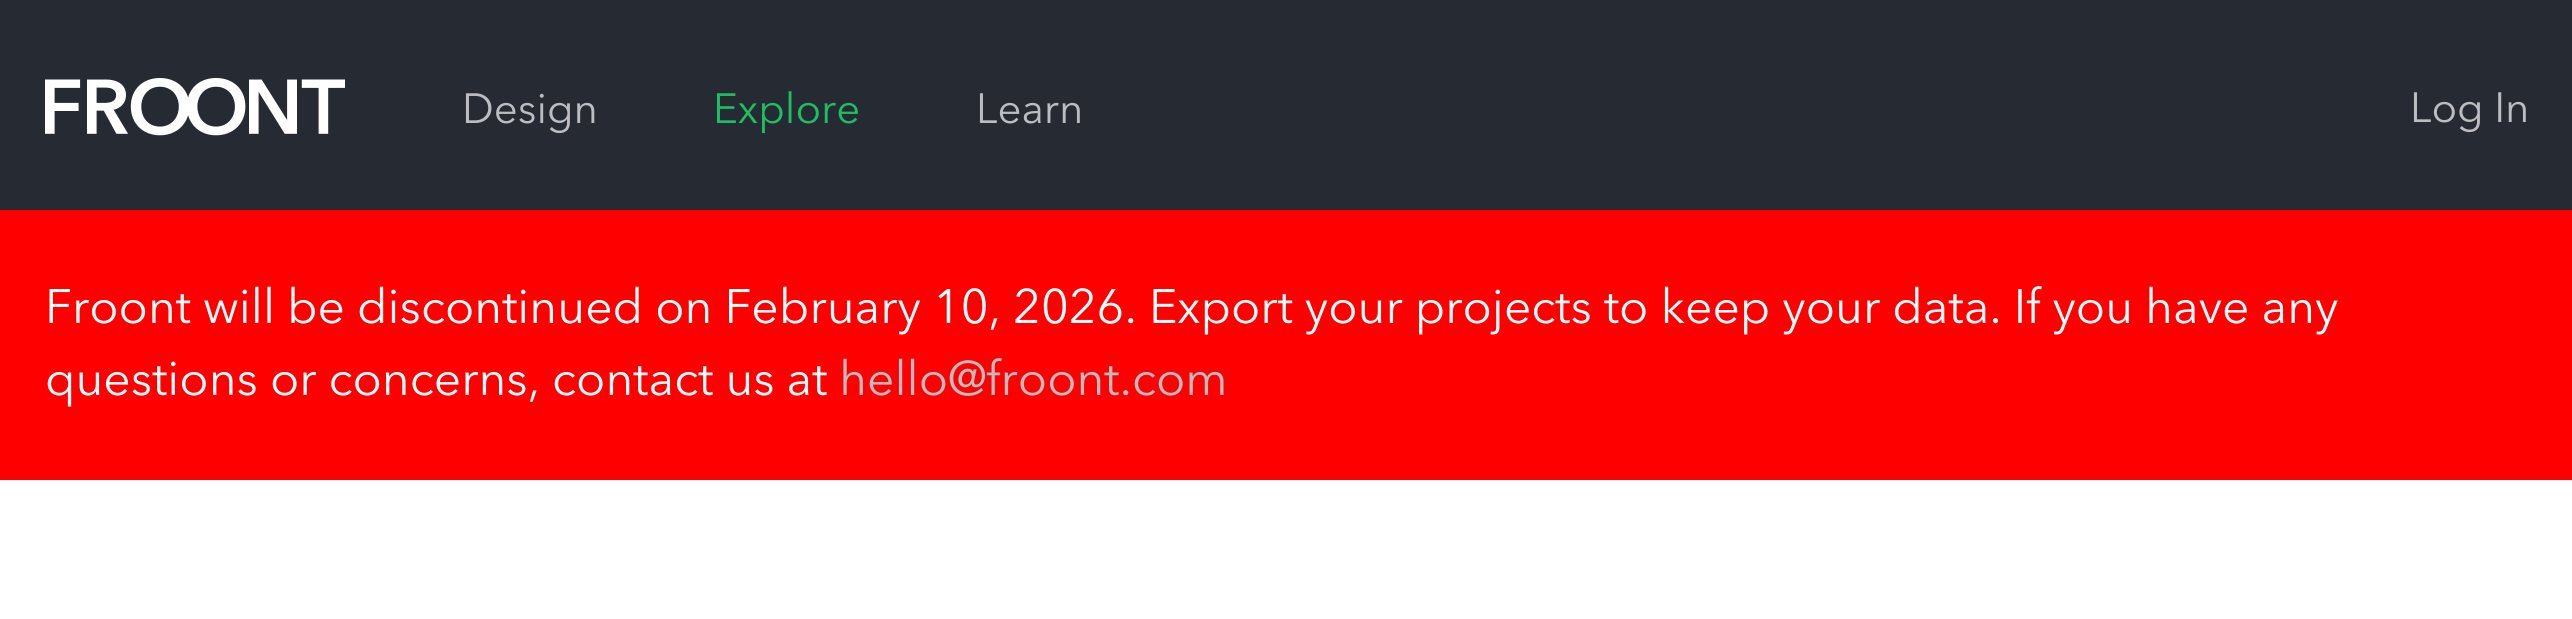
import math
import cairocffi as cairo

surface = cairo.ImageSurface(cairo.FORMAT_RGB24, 2572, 619)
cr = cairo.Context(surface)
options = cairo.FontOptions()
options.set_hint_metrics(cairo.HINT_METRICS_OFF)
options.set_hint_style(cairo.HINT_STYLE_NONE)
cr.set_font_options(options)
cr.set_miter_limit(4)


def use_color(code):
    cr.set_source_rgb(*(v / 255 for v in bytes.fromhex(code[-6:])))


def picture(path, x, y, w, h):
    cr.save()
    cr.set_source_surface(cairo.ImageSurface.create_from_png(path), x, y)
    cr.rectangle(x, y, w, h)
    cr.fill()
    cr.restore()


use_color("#262a33")
cr.paint()
picture("img1.png", 45, 78, 300, 58)
cr.select_font_face("Avenir Next")
cr.set_font_size(42)
use_color("#bcbdc0")
cr.move_to(462, 123)
cr.show_text("Design")
use_color("#1cbf61")
cr.move_to(713, 123)
cr.show_text("Explore")
use_color("#bcbdc0")
cr.move_to(976, 123)
cr.show_text("Learn")
cr.move_to(2410, 122)
cr.show_text("Log In")
use_color("#ff0000")
cr.rectangle(0, 210, 2572, 270)
cr.fill()
cr.set_font_size(48)
use_color("#ffffff")
cr.move_to(45, 323)
cr.show_text("Froont will be discontinued on February 10, 2026. Export your projects to keep your data. If you have any")
cr.move_to(45, 395)
cr.show_text("questions or concerns, contact us at")
use_color("#bcbdc0")
cr.move_to(839, 395)
cr.show_text("hello@froont.com")
use_color("#ffffff")
cr.rectangle(0, 480, 2572, 139)
cr.fill()
surface.write_to_png("result.png")
